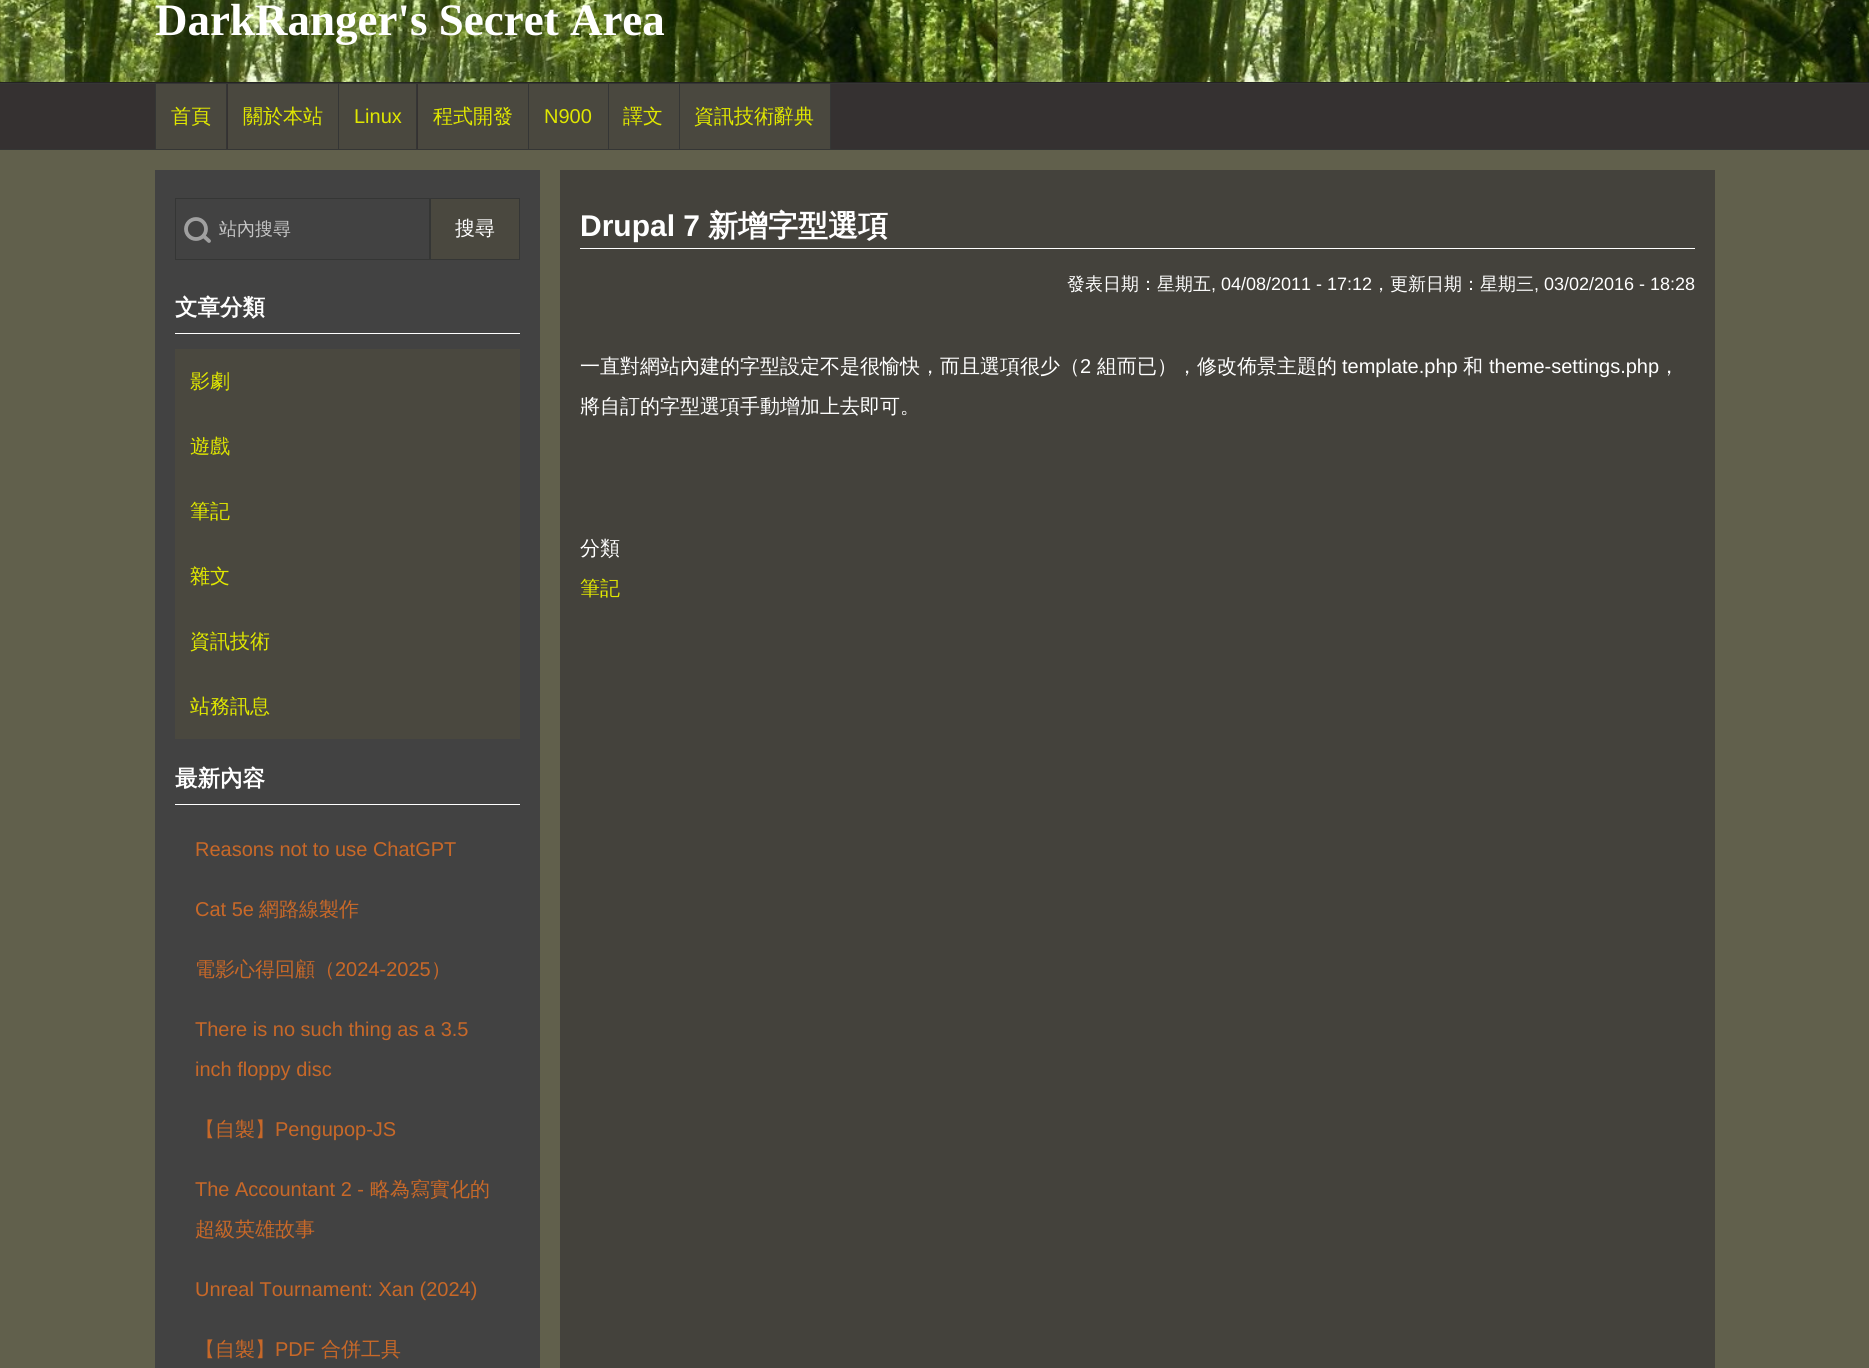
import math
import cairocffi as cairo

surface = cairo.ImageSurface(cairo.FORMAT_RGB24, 1869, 1368)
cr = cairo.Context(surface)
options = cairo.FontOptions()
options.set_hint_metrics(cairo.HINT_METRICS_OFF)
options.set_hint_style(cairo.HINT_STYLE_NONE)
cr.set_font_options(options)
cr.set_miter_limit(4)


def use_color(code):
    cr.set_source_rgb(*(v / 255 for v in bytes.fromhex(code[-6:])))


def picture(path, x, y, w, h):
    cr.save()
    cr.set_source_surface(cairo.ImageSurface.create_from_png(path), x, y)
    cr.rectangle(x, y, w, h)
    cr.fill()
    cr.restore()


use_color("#353131")
cr.paint()
use_color("#242323")
cr.rectangle(0, 82, 1869, 1)
cr.fill()
picture("img1.png", 0, 0, 1869, 82)
cr.select_font_face("Liberation Serif", cairo.FONT_SLANT_NORMAL, cairo.FONT_WEIGHT_BOLD)
cr.set_font_size(45)
use_color("#ffffff")
cr.move_to(155, 35)
cr.show_text("DarkRanger's Secret Area")
use_color("#353635")
cr.rectangle(0, 83, 1869, 1)
cr.fill()
cr.rectangle(0, 149, 1869, 1)
cr.fill()
cr.rectangle(226, 84, 1, 65)
cr.fill()
cr.rectangle(155, 84, 1, 65)
cr.fill()
use_color("#4a483f")
cr.rectangle(156, 84, 70, 65)
cr.fill()
cr.select_font_face("WenQuanYi Zen Hei Medium")
cr.set_font_size(20)
use_color("#e0e700")
cr.move_to(171, 123)
cr.show_text("首頁")
use_color("#353635")
cr.rectangle(338, 84, 1, 65)
cr.fill()
use_color("#4a483f")
cr.rectangle(228, 84, 110, 65)
cr.fill()
use_color("#e0e700")
cr.move_to(243, 123)
cr.show_text("關於本站")
use_color("#353635")
cr.rectangle(416, 84, 1, 65)
cr.fill()
use_color("#4a483f")
cr.rectangle(339, 84, 77, 65)
cr.fill()
cr.select_font_face("Liberation Sans")
use_color("#e0e700")
cr.move_to(354, 123)
cr.show_text("Linux")
use_color("#353635")
cr.rectangle(528, 84, 1, 65)
cr.fill()
use_color("#4a483f")
cr.rectangle(418, 84, 110, 65)
cr.fill()
cr.select_font_face("WenQuanYi Zen Hei Medium")
use_color("#e0e700")
cr.move_to(433, 123)
cr.show_text("程式開發")
use_color("#353635")
cr.rectangle(608, 84, 1, 65)
cr.fill()
use_color("#4a483f")
cr.rectangle(529, 84, 79, 65)
cr.fill()
cr.select_font_face("Liberation Sans")
use_color("#e0e700")
cr.move_to(544, 123)
cr.show_text("N900")
use_color("#353635")
cr.rectangle(679, 84, 1, 65)
cr.fill()
use_color("#4a483f")
cr.rectangle(609, 84, 70, 65)
cr.fill()
cr.select_font_face("WenQuanYi Zen Hei Medium")
use_color("#e0e700")
cr.move_to(623, 123)
cr.show_text("譯文")
use_color("#353635")
cr.rectangle(830, 84, 1, 65)
cr.fill()
use_color("#4a483f")
cr.rectangle(680, 84, 150, 65)
cr.fill()
use_color("#e0e700")
cr.move_to(694, 123)
cr.show_text("資訊技術辭典")
use_color("#61604c")
cr.rectangle(0, 150, 1869, 1218)
cr.fill()
use_color("#424242")
cr.rectangle(155, 170, 385, 1198)
cr.fill()
cr.rectangle(175.5, 198.5, 254, 61)
use_color("#353635")
cr.set_line_width(1)
cr.stroke()
cr.arc(196, 229, 10, 0, 2 * math.pi)
use_color("#a0a0a0")
cr.set_line_width(3.8)
cr.stroke()
cr.new_path()
cr.move_to(209, 241)
cr.line_to(203.5, 236)
cr.set_line_cap(cairo.LINE_CAP_ROUND)
cr.set_line_join(cairo.LINE_JOIN_ROUND)
cr.stroke()
cr.set_font_size(18)
use_color("#c6c6c6")
cr.move_to(219, 235)
cr.show_text("站內搜尋")
use_color("#4a483f")
cr.rectangle(430.5, 198.5, 89, 61)
cr.fill_preserve()
use_color("#353635")
cr.set_line_width(1)
cr.set_line_cap(cairo.LINE_CAP_BUTT)
cr.set_line_join(cairo.LINE_JOIN_MITER)
cr.stroke()
cr.set_font_size(20)
use_color("#ffffff")
cr.move_to(455, 235)
cr.show_text("搜尋")
cr.rectangle(175, 333, 345, 1)
cr.fill()
cr.select_font_face("WenQuanYi Zen Hei", cairo.FONT_SLANT_NORMAL, cairo.FONT_WEIGHT_BOLD)
cr.set_font_size(22.5)
cr.move_to(175, 315)
cr.show_text("文章分類")
use_color("#4a483f")
cr.rectangle(175, 349, 345, 390)
cr.fill()
cr.select_font_face("WenQuanYi Zen Hei Medium")
cr.set_font_size(20)
use_color("#e0e700")
cr.move_to(190, 388)
cr.show_text("影劇")
cr.move_to(190, 453)
cr.show_text("遊戲")
cr.move_to(190, 518)
cr.show_text("筆記")
cr.move_to(190, 583)
cr.show_text("雜文")
cr.move_to(190, 648)
cr.show_text("資訊技術")
cr.move_to(190, 713)
cr.show_text("站務訊息")
use_color("#ffffff")
cr.rectangle(175, 804, 345, 1)
cr.fill()
cr.select_font_face("WenQuanYi Zen Hei", cairo.FONT_SLANT_NORMAL, cairo.FONT_WEIGHT_BOLD)
cr.set_font_size(22.5)
cr.move_to(175, 786)
cr.show_text("最新內容")
cr.select_font_face("Liberation Sans")
cr.set_font_size(20)
use_color("#c86828")
cr.move_to(195, 856)
cr.show_text("Reasons not to use ChatGPT")
cr.move_to(195, 916)
cr.show_text("Cat 5e")
cr.select_font_face("WenQuanYi Zen Hei Medium")
cr.move_to(259, 916)
cr.show_text("網路線製作")
cr.move_to(195, 976)
cr.show_text("電影心得回顧（")
cr.select_font_face("Liberation Sans")
cr.move_to(335, 976)
cr.show_text("2024-2025")
cr.select_font_face("WenQuanYi Zen Hei Medium")
cr.move_to(431, 976)
cr.show_text("）")
cr.select_font_face("Liberation Sans")
cr.move_to(195, 1036)
cr.show_text("There is no such thing as a 3.5")
cr.move_to(195, 1076)
cr.show_text("inch floppy disc")
cr.select_font_face("WenQuanYi Zen Hei Medium")
cr.move_to(195, 1136)
cr.show_text("【自製】")
cr.select_font_face("Liberation Sans")
cr.move_to(275, 1136)
cr.show_text("Pengupop-JS")
cr.move_to(195, 1196)
cr.show_text("The Accountant 2 -")
cr.select_font_face("WenQuanYi Zen Hei Medium")
cr.move_to(370, 1196)
cr.show_text("略為寫實化的")
cr.move_to(195, 1236)
cr.show_text("超級英雄故事")
cr.select_font_face("Liberation Sans")
cr.move_to(195, 1296)
cr.show_text("Unreal Tournament: Xan (2024)")
cr.select_font_face("WenQuanYi Zen Hei Medium")
cr.move_to(195, 1356)
cr.show_text("【自製】")
cr.select_font_face("Liberation Sans")
cr.move_to(275, 1356)
cr.show_text("PDF")
cr.select_font_face("WenQuanYi Zen Hei Medium")
cr.move_to(321, 1356)
cr.show_text("合併工具")
use_color("#44423c")
cr.rectangle(560, 170, 1155, 1198)
cr.fill()
use_color("#ffffff")
cr.rectangle(580, 248, 1115, 1)
cr.fill()
cr.select_font_face("Liberation Sans", cairo.FONT_SLANT_NORMAL, cairo.FONT_WEIGHT_BOLD)
cr.set_font_size(30)
cr.move_to(580, 236)
cr.show_text("Drupal 7")
cr.select_font_face("WenQuanYi Zen Hei", cairo.FONT_SLANT_NORMAL, cairo.FONT_WEIGHT_BOLD)
cr.move_to(708, 236)
cr.show_text("新增字型選項")
cr.select_font_face("WenQuanYi Zen Hei Medium")
cr.set_font_size(18)
cr.move_to(1067, 290)
cr.show_text("發表日期：星期五")
cr.select_font_face("Liberation Sans")
cr.move_to(1211, 290)
cr.show_text(", 04/08/2011 - 17:12")
cr.select_font_face("WenQuanYi Zen Hei Medium")
cr.move_to(1372, 290)
cr.show_text("，更新日期：星期三")
cr.select_font_face("Liberation Sans")
cr.move_to(1534, 290)
cr.show_text(", 03/02/2016 - 18:28")
cr.select_font_face("WenQuanYi Zen Hei Medium")
cr.set_font_size(20)
cr.move_to(580, 373)
cr.show_text("一直對網站內建的字型設定不是很愉快，而且選項很少（")
cr.select_font_face("Liberation Sans")
cr.move_to(1080, 373)
cr.show_text("2")
cr.select_font_face("WenQuanYi Zen Hei Medium")
cr.move_to(1097, 373)
cr.show_text("組而已），修改佈景主題的")
cr.select_font_face("Liberation Sans")
cr.move_to(1342, 373)
cr.show_text("template.php")
cr.select_font_face("WenQuanYi Zen Hei Medium")
cr.move_to(1463, 373)
cr.show_text("和")
cr.select_font_face("Liberation Sans")
cr.move_to(1489, 373)
cr.show_text("theme-settings.php")
cr.select_font_face("WenQuanYi Zen Hei Medium")
cr.move_to(1659, 373)
cr.show_text("，")
cr.move_to(580, 413)
cr.show_text("將自訂的字型選項手動增加上去即可。")
cr.move_to(580, 555)
cr.show_text("分類")
use_color("#e0e700")
cr.move_to(580, 595)
cr.show_text("筆記")
surface.write_to_png("result.png")
